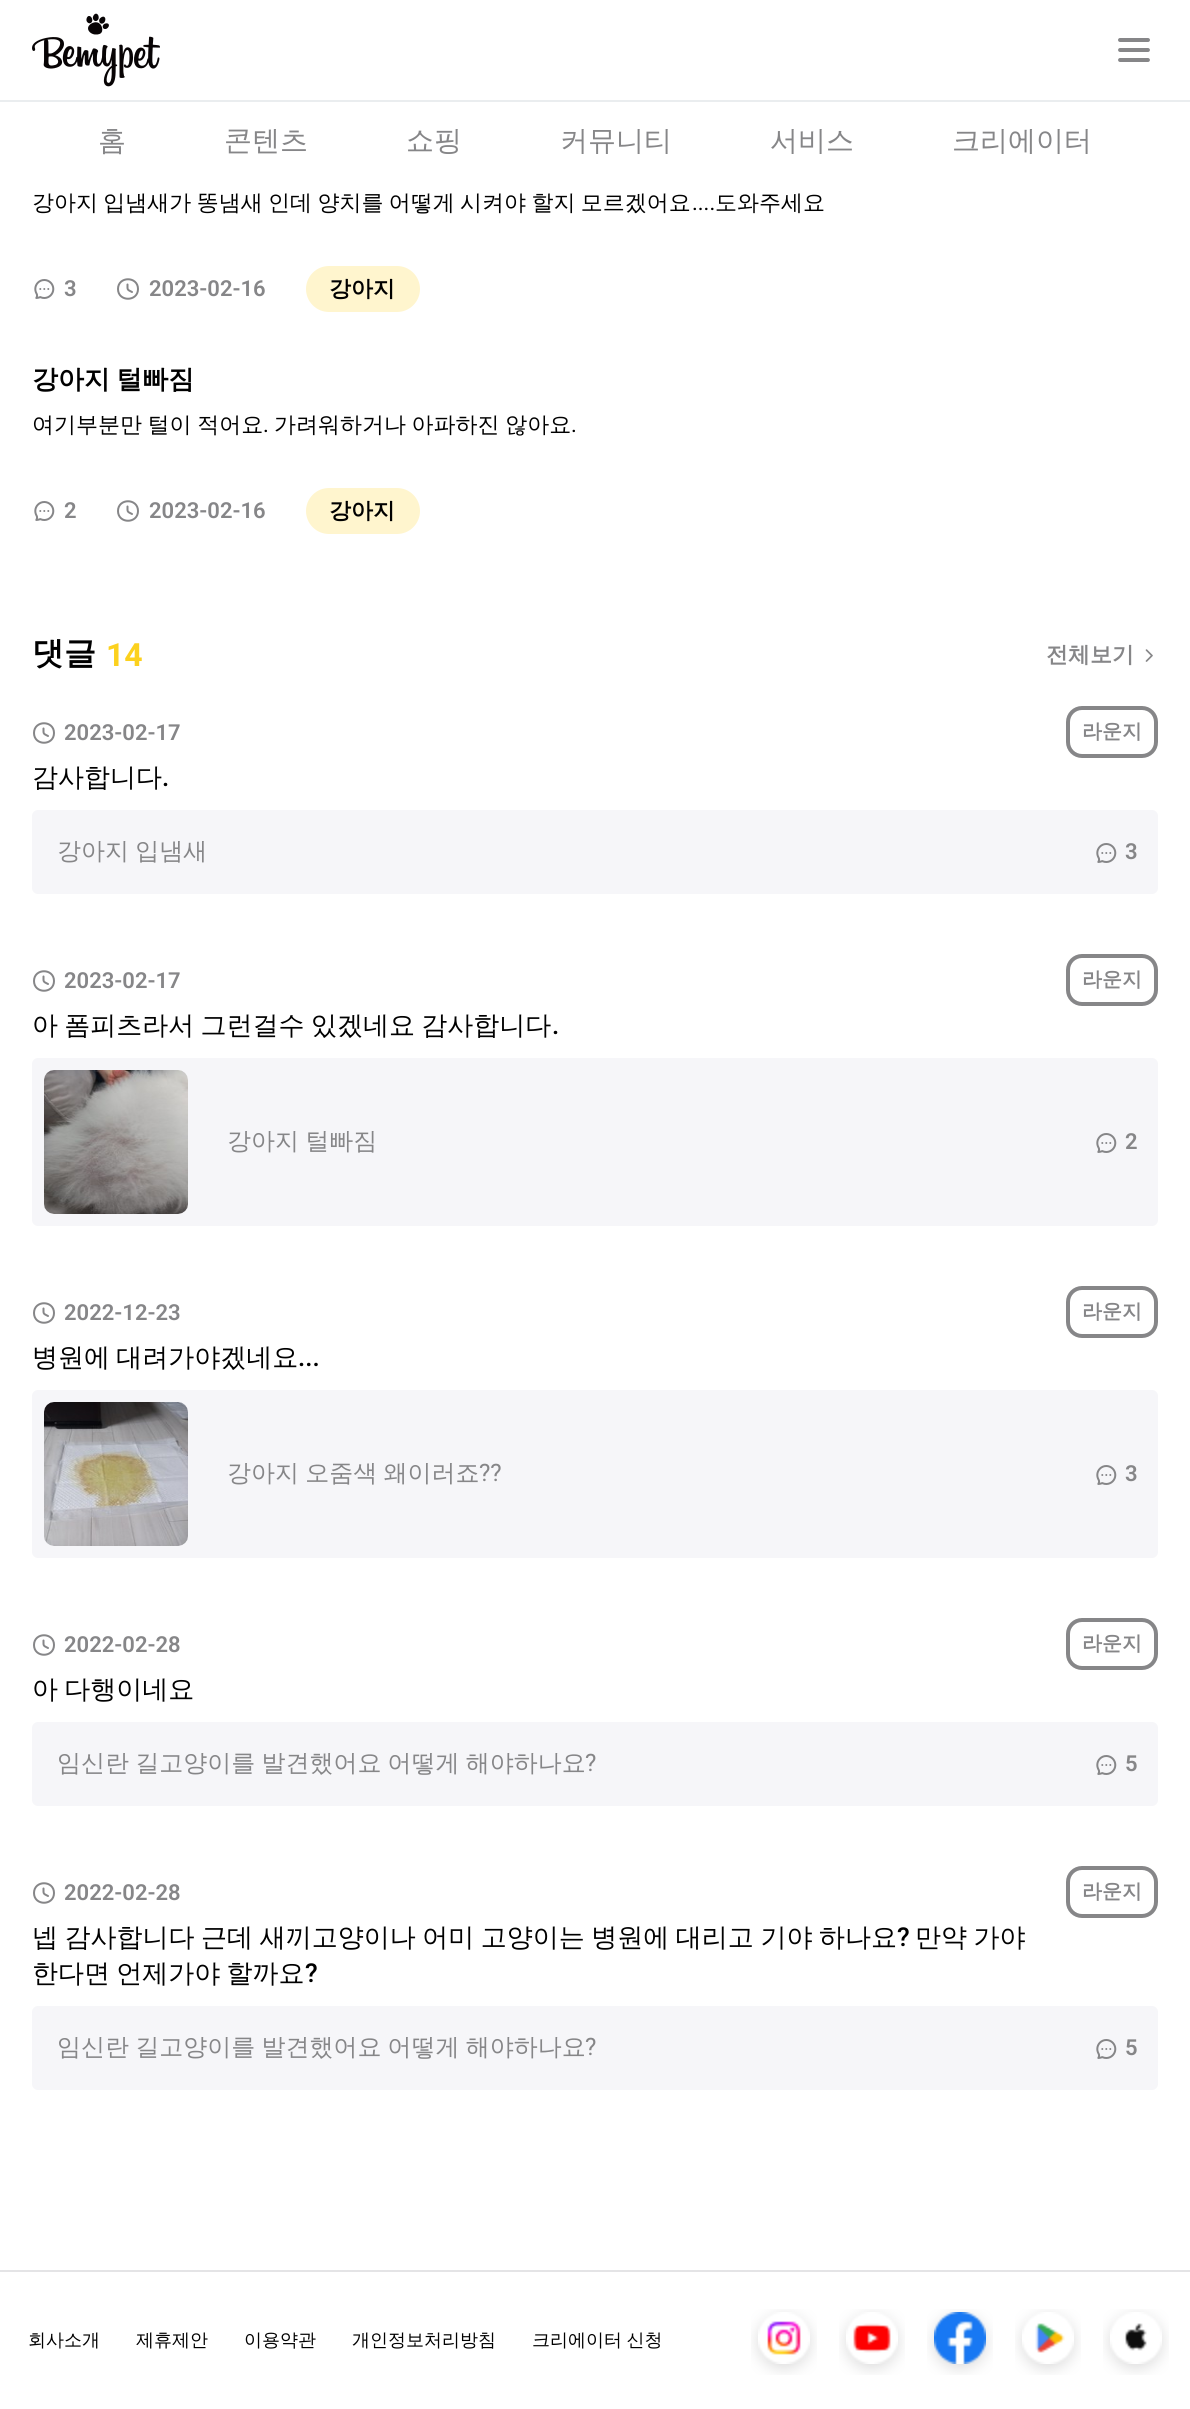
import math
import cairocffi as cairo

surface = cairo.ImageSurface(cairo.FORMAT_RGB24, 1190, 2409)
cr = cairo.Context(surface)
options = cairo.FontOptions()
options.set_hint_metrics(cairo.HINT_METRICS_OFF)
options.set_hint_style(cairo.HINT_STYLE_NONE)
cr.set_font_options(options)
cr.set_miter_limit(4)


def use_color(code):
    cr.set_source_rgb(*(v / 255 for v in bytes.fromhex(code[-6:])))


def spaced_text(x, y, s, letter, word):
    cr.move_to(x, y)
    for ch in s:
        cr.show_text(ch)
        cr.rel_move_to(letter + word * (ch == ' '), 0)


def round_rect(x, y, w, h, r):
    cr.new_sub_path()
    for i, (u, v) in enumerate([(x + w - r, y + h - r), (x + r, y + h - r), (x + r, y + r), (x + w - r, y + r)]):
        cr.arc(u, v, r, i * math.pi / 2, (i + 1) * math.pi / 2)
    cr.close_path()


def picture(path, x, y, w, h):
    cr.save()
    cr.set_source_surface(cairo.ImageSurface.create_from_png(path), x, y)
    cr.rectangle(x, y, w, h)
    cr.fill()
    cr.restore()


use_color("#ffffff")
cr.paint()
picture("img1.png", 32, 13, 128, 74)
picture("img2.png", 1118, 38, 32, 24)
use_color("#eaedef")
cr.rectangle(0, 100, 1190, 2)
cr.fill()
cr.select_font_face("WenQuanYi Zen Hei Medium")
cr.set_font_size(28)
use_color("#868688")
cr.move_to(98, 150)
cr.show_text("홈")
cr.move_to(224, 150)
cr.show_text("콘텐츠")
cr.move_to(406, 150)
cr.show_text("쇼핑")
cr.move_to(560, 150)
cr.show_text("커뮤니티")
cr.move_to(770, 150)
cr.show_text("서비스")
cr.move_to(952, 150)
cr.show_text("크리에이터")
cr.set_font_size(22)
use_color("#000000")
spaced_text(32, 210, "강아지 입냄새가 똥냄새 인데 양치를 어떻게 시켜야 할지 모르겠어요", 0, -1.25)
cr.select_font_face("Roboto")
cr.move_to(692, 210)
cr.show_text("....")
cr.select_font_face("WenQuanYi Zen Hei Medium")
cr.move_to(715, 210)
cr.show_text("도와주세요")
picture("img3.png", 34, 279, 21, 20)
cr.select_font_face("Roboto SemiBold")
use_color("#868688")
cr.move_to(64, 296)
cr.show_text("3")
cr.new_path()
cr.move_to(138, 289)
cr.curve_to(138, 302, 118, 302, 118, 289)
cr.curve_to(118, 276, 138, 276, 138, 289)
cr.close_path()
cr.move_to(132, 292)
cr.curve_to(127, 289.5, 127.5, 290, 127.5, 284.5)
cr.set_line_cap(cairo.LINE_CAP_ROUND)
cr.set_line_join(cairo.LINE_JOIN_ROUND)
cr.stroke()
cr.move_to(149, 296)
cr.show_text("2023-02-16")
use_color("#fff5ce")
round_rect(306, 266, 114, 46, 23)
cr.fill()
cr.select_font_face("WenQuanYi Zen Hei", cairo.FONT_SLANT_NORMAL, cairo.FONT_WEIGHT_BOLD)
use_color("#000000")
cr.move_to(329, 296)
cr.show_text("강아지")
cr.set_font_size(26)
spaced_text(32, 388, "강아지 털빠짐", 0, -1.5)
cr.select_font_face("WenQuanYi Zen Hei Medium")
cr.set_font_size(22)
spaced_text(32, 432, "여기부분만 털이 적어요", 0, -1)
cr.select_font_face("Roboto")
cr.move_to(263, 432)
cr.show_text(".")
cr.select_font_face("WenQuanYi Zen Hei Medium")
spaced_text(274, 432, "가려워하거나 아파하진 않아요", 0, -1)
cr.select_font_face("Roboto")
cr.move_to(571, 432)
cr.show_text(".")
picture("img3.png", 34, 501, 21, 20)
cr.select_font_face("Roboto SemiBold")
use_color("#868688")
cr.move_to(64, 518)
cr.show_text("2")
cr.new_path()
cr.move_to(138, 511)
cr.curve_to(138, 524, 118, 524, 118, 511)
cr.curve_to(118, 498, 138, 498, 138, 511)
cr.close_path()
cr.move_to(132, 514)
cr.curve_to(127, 511.5, 127.5, 512, 127.5, 506.5)
cr.stroke()
cr.move_to(149, 518)
cr.show_text("2023-02-16")
use_color("#fff5ce")
round_rect(306, 488, 114, 46, 23)
cr.fill()
cr.select_font_face("WenQuanYi Zen Hei", cairo.FONT_SLANT_NORMAL, cairo.FONT_WEIGHT_BOLD)
use_color("#000000")
cr.move_to(329, 518)
cr.show_text("강아지")
cr.set_font_size(32)
cr.move_to(32, 664)
cr.show_text("댓글")
cr.select_font_face("Roboto", cairo.FONT_SLANT_NORMAL, cairo.FONT_WEIGHT_BOLD)
use_color("#fcd11e")
cr.move_to(106, 666)
cr.show_text("14")
cr.select_font_face("WenQuanYi Zen Hei", cairo.FONT_SLANT_NORMAL, cairo.FONT_WEIGHT_BOLD)
cr.set_font_size(22)
use_color("#868688")
cr.move_to(1046, 662)
cr.show_text("전체보기")
picture("img4.png", 1145, 649, 8, 13)
cr.new_path()
cr.move_to(54, 733)
cr.curve_to(54, 746, 34, 746, 34, 733)
cr.curve_to(34, 720, 54, 720, 54, 733)
cr.close_path()
cr.move_to(48, 736)
cr.curve_to(43, 733.5, 43.5, 734, 43.5, 728.5)
cr.stroke()
cr.select_font_face("Roboto SemiBold")
cr.move_to(64, 740)
cr.show_text("2023-02-17")
round_rect(1068, 708, 88, 48, 14)
cr.set_line_width(4)
cr.set_line_cap(cairo.LINE_CAP_BUTT)
cr.set_line_join(cairo.LINE_JOIN_MITER)
cr.stroke()
cr.select_font_face("WenQuanYi Zen Hei", cairo.FONT_SLANT_NORMAL, cairo.FONT_WEIGHT_BOLD)
cr.set_font_size(20)
cr.move_to(1082, 738)
cr.show_text("라운지")
cr.select_font_face("WenQuanYi Zen Hei Medium")
cr.set_font_size(26)
use_color("#000000")
cr.move_to(32, 786)
cr.show_text("감사합니다")
cr.select_font_face("Roboto Medium")
cr.move_to(162, 786)
cr.show_text(".")
use_color("#f6f6f9")
round_rect(32, 810, 1126, 84, 6)
cr.fill()
cr.select_font_face("WenQuanYi Zen Hei Medium")
cr.set_font_size(24)
use_color("#868688")
spaced_text(57, 859, "강아지 입냄새", 0, -1)
picture("img5.png", 1096, 843, 21, 20)
cr.select_font_face("Roboto SemiBold")
cr.set_font_size(22)
cr.move_to(1125, 859)
cr.show_text("3")
cr.new_path()
cr.move_to(54, 981)
cr.curve_to(54, 994, 34, 994, 34, 981)
cr.curve_to(34, 968, 54, 968, 54, 981)
cr.close_path()
cr.move_to(48, 984)
cr.curve_to(43, 981.5, 43.5, 982, 43.5, 976.5)
cr.set_line_width(2)
cr.set_line_cap(cairo.LINE_CAP_ROUND)
cr.set_line_join(cairo.LINE_JOIN_ROUND)
cr.stroke()
cr.move_to(64, 988)
cr.show_text("2023-02-17")
round_rect(1068, 956, 88, 48, 14)
cr.set_line_width(4)
cr.set_line_cap(cairo.LINE_CAP_BUTT)
cr.set_line_join(cairo.LINE_JOIN_MITER)
cr.stroke()
cr.select_font_face("WenQuanYi Zen Hei", cairo.FONT_SLANT_NORMAL, cairo.FONT_WEIGHT_BOLD)
cr.set_font_size(20)
cr.move_to(1082, 986)
cr.show_text("라운지")
cr.select_font_face("WenQuanYi Zen Hei Medium")
cr.set_font_size(26)
use_color("#000000")
spaced_text(32, 1034, "아 폼피츠라서 그런걸수 있겠네요 감사합니다", 0, -1.5)
cr.select_font_face("Roboto Medium")
cr.move_to(552, 1034)
cr.show_text(".")
use_color("#f6f6f9")
round_rect(32, 1058, 1126, 168, 6)
cr.fill()
picture("img6.png", 44, 1070, 144, 144)
cr.select_font_face("WenQuanYi Zen Hei Medium")
cr.set_font_size(24)
use_color("#868688")
spaced_text(227, 1149, "강아지 털빠짐", 0, -1)
picture("img5.png", 1096, 1133, 21, 20)
cr.select_font_face("Roboto SemiBold")
cr.set_font_size(22)
cr.move_to(1125, 1149)
cr.show_text("2")
cr.new_path()
cr.move_to(54, 1313)
cr.curve_to(54, 1326, 34, 1326, 34, 1313)
cr.curve_to(34, 1300, 54, 1300, 54, 1313)
cr.close_path()
cr.move_to(48, 1316)
cr.curve_to(43, 1313.5, 43.5, 1314, 43.5, 1308.5)
cr.set_line_width(2)
cr.set_line_cap(cairo.LINE_CAP_ROUND)
cr.set_line_join(cairo.LINE_JOIN_ROUND)
cr.stroke()
cr.move_to(64, 1320)
cr.show_text("2022-12-23")
round_rect(1068, 1288, 88, 48, 14)
cr.set_line_width(4)
cr.set_line_cap(cairo.LINE_CAP_BUTT)
cr.set_line_join(cairo.LINE_JOIN_MITER)
cr.stroke()
cr.select_font_face("WenQuanYi Zen Hei", cairo.FONT_SLANT_NORMAL, cairo.FONT_WEIGHT_BOLD)
cr.set_font_size(20)
cr.move_to(1082, 1318)
cr.show_text("라운지")
cr.select_font_face("WenQuanYi Zen Hei Medium")
cr.set_font_size(26)
use_color("#000000")
spaced_text(32, 1366, "병원에 대려가야겠네요", 0, -1.5)
cr.select_font_face("Roboto Medium")
cr.move_to(298, 1366)
cr.show_text("...")
use_color("#f6f6f9")
round_rect(32, 1390, 1126, 168, 6)
cr.fill()
picture("img7.png", 44, 1402, 144, 144)
cr.select_font_face("WenQuanYi Zen Hei Medium")
cr.set_font_size(24)
use_color("#868688")
spaced_text(227, 1481, "강아지 오줌색 왜이러죠", 0, -1)
cr.select_font_face("Roboto")
cr.move_to(479, 1481)
cr.show_text("??")
picture("img5.png", 1096, 1465, 21, 20)
cr.select_font_face("Roboto SemiBold")
cr.set_font_size(22)
cr.move_to(1125, 1481)
cr.show_text("3")
cr.new_path()
cr.move_to(54, 1645)
cr.curve_to(54, 1658, 34, 1658, 34, 1645)
cr.curve_to(34, 1632, 54, 1632, 54, 1645)
cr.close_path()
cr.move_to(48, 1648)
cr.curve_to(43, 1645.5, 43.5, 1646, 43.5, 1640.5)
cr.set_line_width(2)
cr.set_line_cap(cairo.LINE_CAP_ROUND)
cr.set_line_join(cairo.LINE_JOIN_ROUND)
cr.stroke()
cr.move_to(64, 1652)
cr.show_text("2022-02-28")
round_rect(1068, 1620, 88, 48, 14)
cr.set_line_width(4)
cr.set_line_cap(cairo.LINE_CAP_BUTT)
cr.set_line_join(cairo.LINE_JOIN_MITER)
cr.stroke()
cr.select_font_face("WenQuanYi Zen Hei", cairo.FONT_SLANT_NORMAL, cairo.FONT_WEIGHT_BOLD)
cr.set_font_size(20)
cr.move_to(1082, 1650)
cr.show_text("라운지")
cr.select_font_face("WenQuanYi Zen Hei Medium")
cr.set_font_size(26)
use_color("#000000")
spaced_text(32, 1698, "아 다행이네요", 0, -1.5)
use_color("#f6f6f9")
round_rect(32, 1722, 1126, 84, 6)
cr.fill()
cr.set_font_size(24)
use_color("#868688")
spaced_text(57, 1771, "임신란 길고양이를 발견했어요 어떻게 해야하나요", 0, -1)
cr.select_font_face("Roboto")
cr.move_to(585, 1771)
cr.show_text("?")
picture("img5.png", 1096, 1755, 21, 20)
cr.select_font_face("Roboto SemiBold")
cr.set_font_size(22)
cr.move_to(1125, 1771)
cr.show_text("5")
cr.new_path()
cr.move_to(54, 1893)
cr.curve_to(54, 1906, 34, 1906, 34, 1893)
cr.curve_to(34, 1880, 54, 1880, 54, 1893)
cr.close_path()
cr.move_to(48, 1896)
cr.curve_to(43, 1893.5, 43.5, 1894, 43.5, 1888.5)
cr.set_line_width(2)
cr.set_line_cap(cairo.LINE_CAP_ROUND)
cr.set_line_join(cairo.LINE_JOIN_ROUND)
cr.stroke()
cr.move_to(64, 1900)
cr.show_text("2022-02-28")
round_rect(1068, 1868, 88, 48, 14)
cr.set_line_width(4)
cr.set_line_cap(cairo.LINE_CAP_BUTT)
cr.set_line_join(cairo.LINE_JOIN_MITER)
cr.stroke()
cr.select_font_face("WenQuanYi Zen Hei", cairo.FONT_SLANT_NORMAL, cairo.FONT_WEIGHT_BOLD)
cr.set_font_size(20)
cr.move_to(1082, 1898)
cr.show_text("라운지")
cr.select_font_face("WenQuanYi Zen Hei Medium")
cr.set_font_size(26)
use_color("#000000")
spaced_text(32, 1946, "넵 감사합니다 근데 새끼고양이나 어미 고양이는 병원에 대리고 기야 하나요", 0, -1.25)
cr.select_font_face("Roboto Medium")
cr.move_to(897, 1946)
cr.show_text("?")
cr.select_font_face("WenQuanYi Zen Hei Medium")
spaced_text(915, 1946, "만약 가야", 0, -1.25)
spaced_text(32, 1982, "한다면 언제가야 할까요", 0, -1.5)
cr.select_font_face("Roboto Medium")
cr.move_to(305, 1982)
cr.show_text("?")
use_color("#f6f6f9")
round_rect(32, 2006, 1126, 84, 6)
cr.fill()
cr.select_font_face("WenQuanYi Zen Hei Medium")
cr.set_font_size(24)
use_color("#868688")
spaced_text(57, 2055, "임신란 길고양이를 발견했어요 어떻게 해야하나요", 0, -1)
cr.select_font_face("Roboto")
cr.move_to(585, 2055)
cr.show_text("?")
picture("img5.png", 1096, 2039, 21, 20)
cr.select_font_face("Roboto SemiBold")
cr.set_font_size(22)
cr.move_to(1125, 2055)
cr.show_text("5")
use_color("#e4e4e6")
cr.rectangle(0, 2270, 1190, 2)
cr.fill()
cr.select_font_face("WenQuanYi Zen Hei Medium")
cr.set_font_size(18)
use_color("#000000")
cr.move_to(28, 2346)
cr.show_text("회사소개")
cr.move_to(136, 2346)
cr.show_text("제휴제안")
cr.move_to(244, 2346)
cr.show_text("이용약관")
cr.move_to(352, 2346)
cr.show_text("개인정보처리방침")
spaced_text(532, 2346, "크리에이터 신청", 0, -1)
picture("img8.png", 751, 2309, 66, 66)
picture("img9.png", 839, 2309, 66, 66)
picture("img10.png", 927, 2309, 66, 66)
picture("img11.png", 1015, 2309, 66, 66)
picture("img12.png", 1103, 2309, 66, 66)
surface.write_to_png("result.png")
